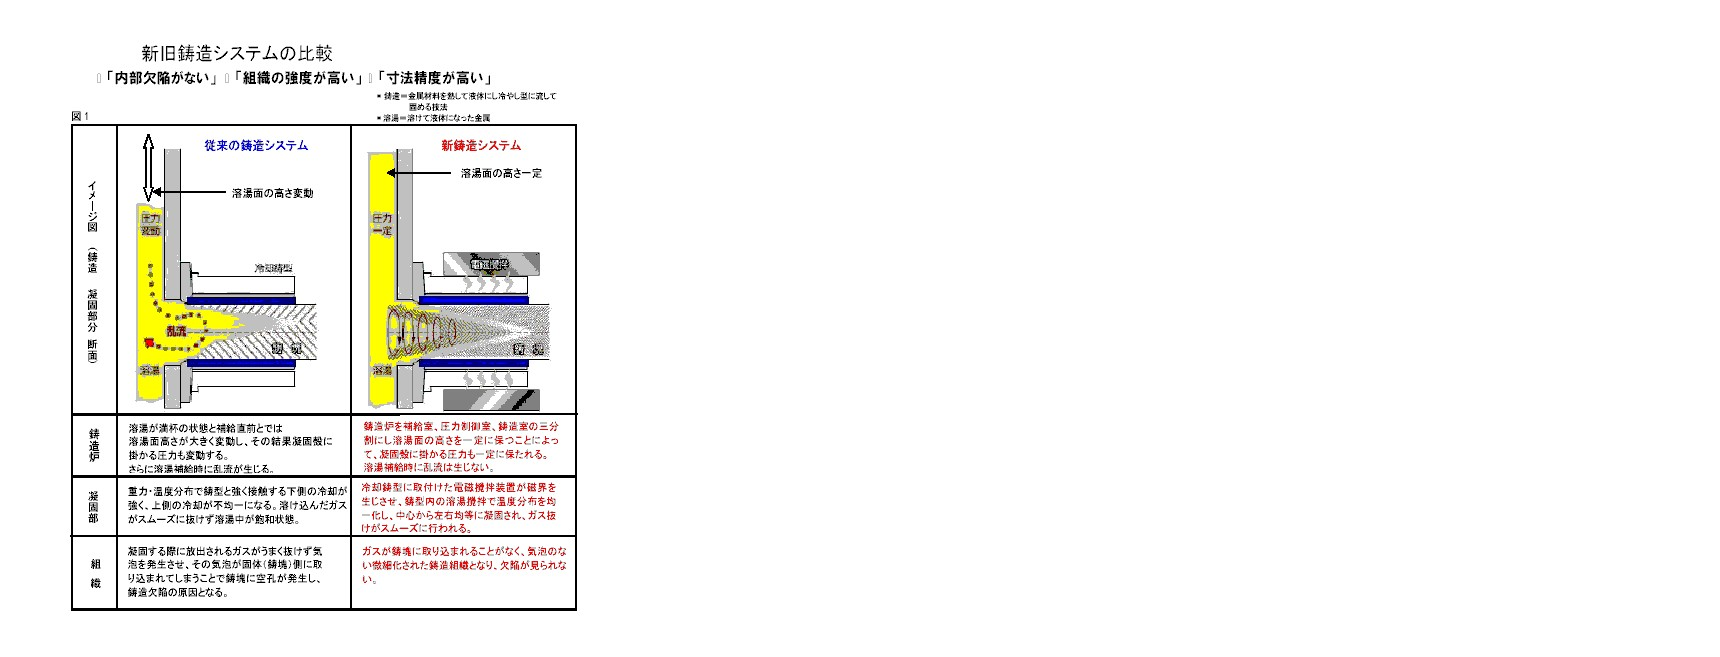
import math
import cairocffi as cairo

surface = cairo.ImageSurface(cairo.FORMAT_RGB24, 1720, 657)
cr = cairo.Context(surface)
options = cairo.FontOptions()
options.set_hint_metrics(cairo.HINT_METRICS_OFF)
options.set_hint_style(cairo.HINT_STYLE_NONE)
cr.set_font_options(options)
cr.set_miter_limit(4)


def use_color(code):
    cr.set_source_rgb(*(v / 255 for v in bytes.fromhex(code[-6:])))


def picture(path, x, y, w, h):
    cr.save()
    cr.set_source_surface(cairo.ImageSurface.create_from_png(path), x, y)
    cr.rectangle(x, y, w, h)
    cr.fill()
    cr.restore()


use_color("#ffffff")
cr.paint()
picture("img1.png", 64, 40, 520, 576)
surface.write_to_png("result.png")
